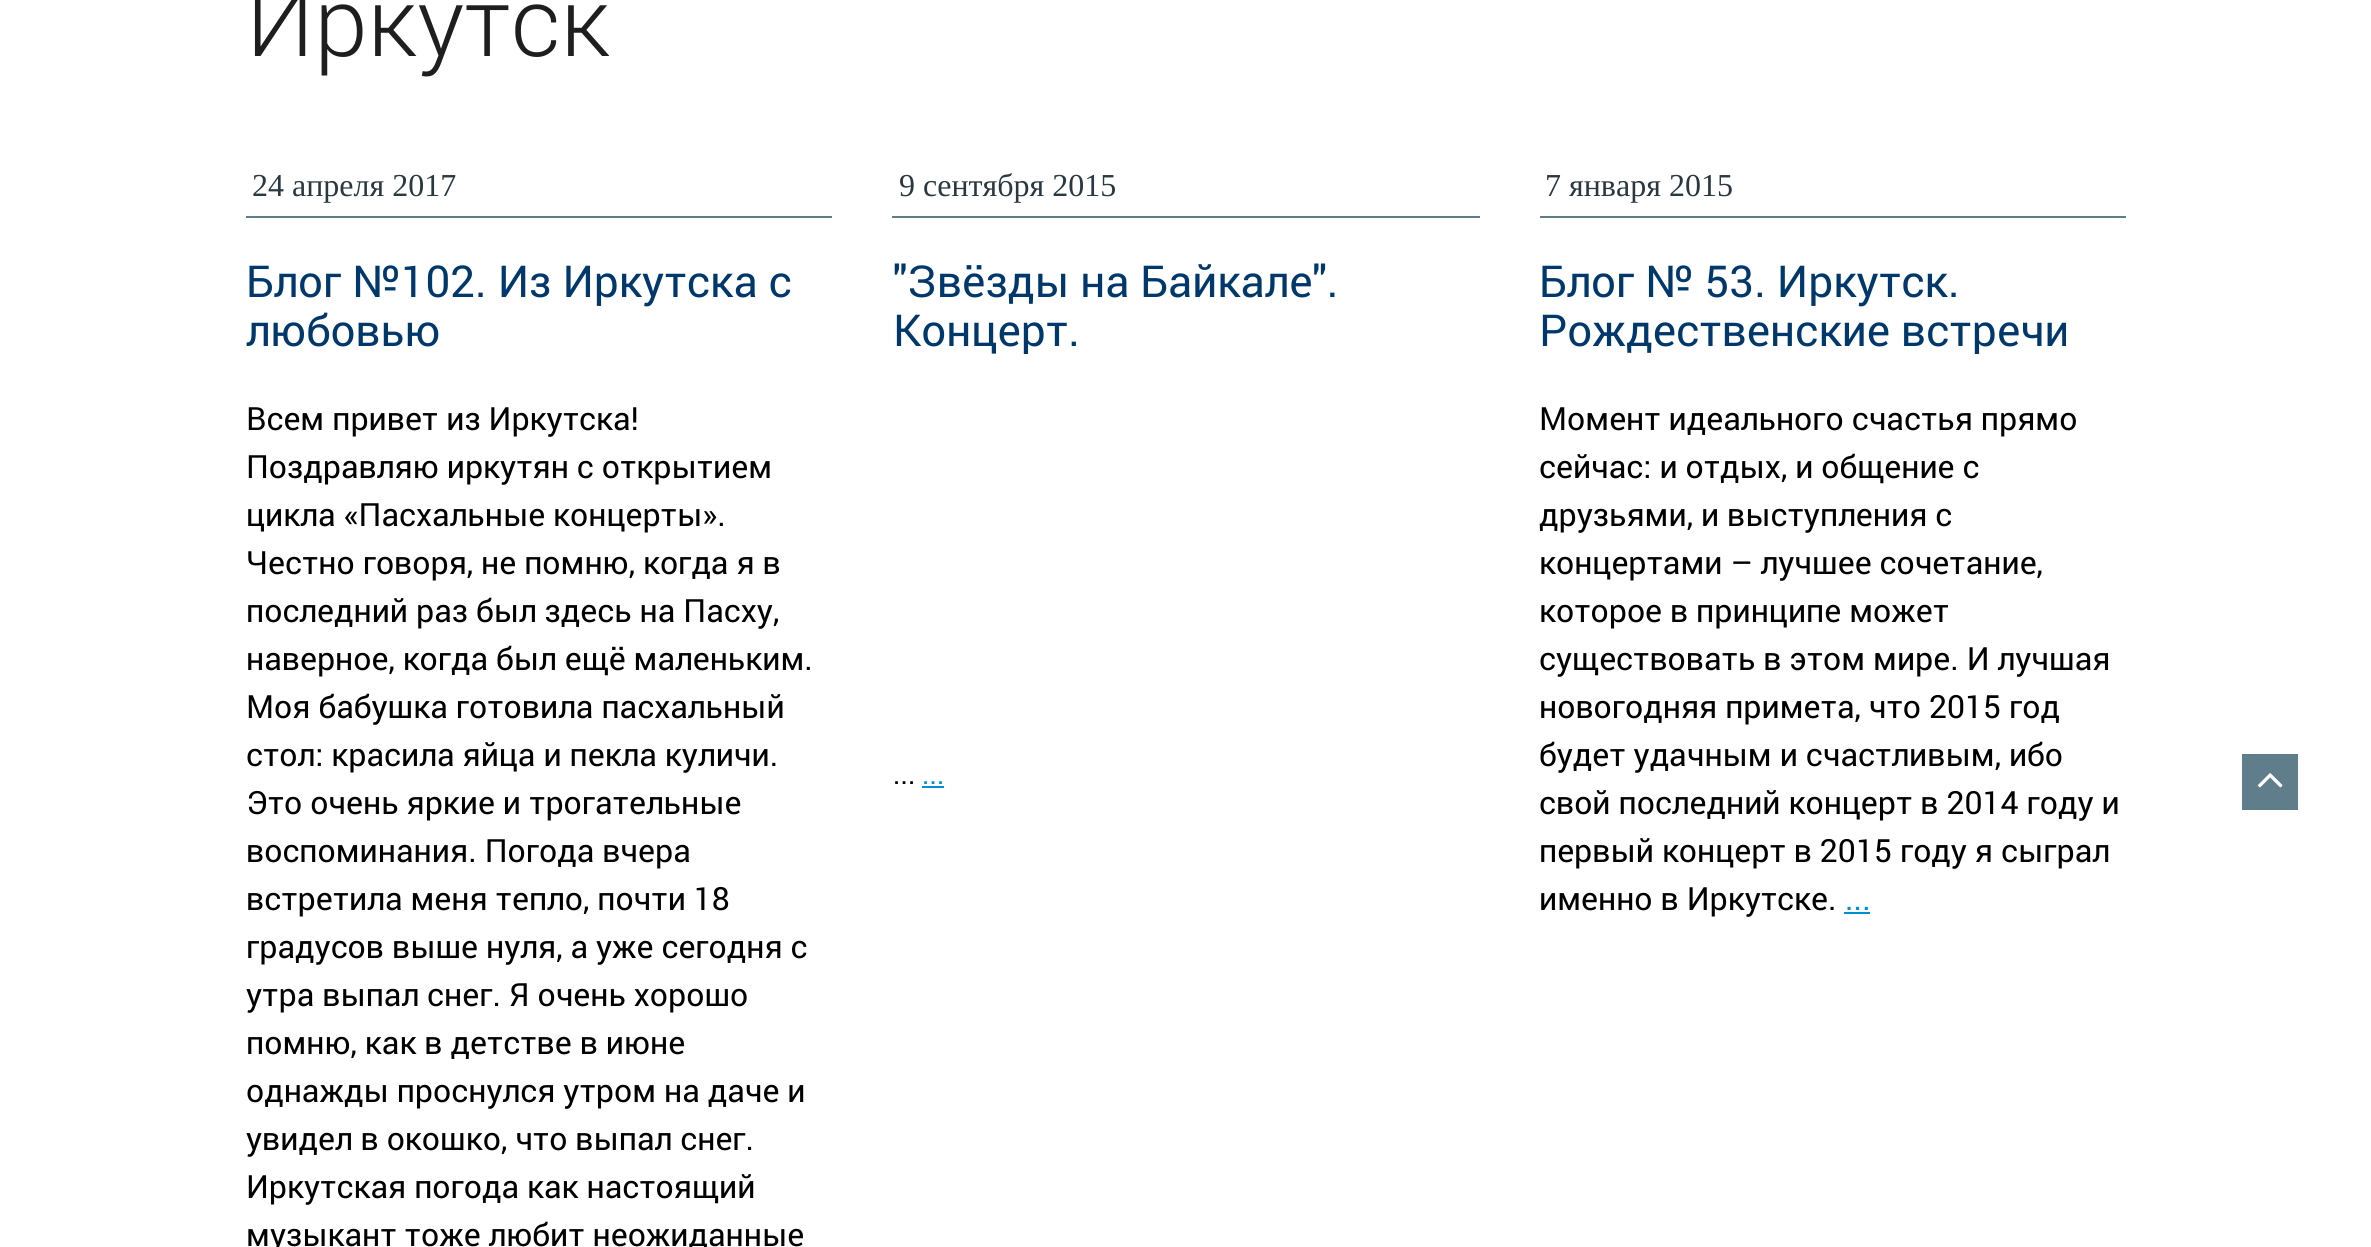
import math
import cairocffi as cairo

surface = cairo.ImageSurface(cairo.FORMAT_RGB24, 2371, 1247)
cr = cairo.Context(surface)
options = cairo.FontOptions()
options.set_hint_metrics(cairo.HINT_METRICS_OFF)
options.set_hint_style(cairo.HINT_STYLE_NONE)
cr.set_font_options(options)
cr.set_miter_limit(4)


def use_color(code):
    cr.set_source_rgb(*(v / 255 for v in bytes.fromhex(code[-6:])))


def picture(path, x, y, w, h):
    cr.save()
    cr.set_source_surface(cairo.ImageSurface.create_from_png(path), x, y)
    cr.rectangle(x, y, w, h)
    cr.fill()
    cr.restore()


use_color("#ffffff")
cr.paint()
cr.select_font_face("Roboto Light")
cr.set_font_size(96)
use_color("#1e1e1e")
cr.move_to(246, 56)
cr.show_text("Иркутск")
use_color("#607d8b")
cr.rectangle(246, 216, 586, 2)
cr.fill()
cr.select_font_face("Liberation Serif")
cr.set_font_size(32)
use_color("#2a3840")
cr.move_to(252, 196)
cr.show_text("24 апреля 2017")
cr.select_font_face("Roboto")
cr.set_font_size(44)
use_color("#01386c")
cr.move_to(246, 297)
cr.show_text("Блог №102. Из Иркутска с")
cr.move_to(246, 346)
cr.show_text("любовью")
use_color("#607d8b")
cr.rectangle(892, 216, 588, 2)
cr.fill()
cr.select_font_face("Liberation Serif")
cr.set_font_size(32)
use_color("#2a3840")
cr.move_to(899, 196)
cr.show_text("9 сентября 2015")
cr.select_font_face("Roboto")
cr.set_font_size(44)
use_color("#01386c")
cr.move_to(893, 297)
cr.show_text("\"Звёзды на Байкале\".")
cr.save()
cr.rectangle(892, 258, 568, 96)
cr.clip()
cr.move_to(893, 346)
cr.show_text("Концерт.")
cr.restore()
use_color("#607d8b")
cr.rectangle(1540, 216, 586, 2)
cr.fill()
cr.select_font_face("Liberation Serif")
cr.set_font_size(32)
use_color("#2a3840")
cr.move_to(1545, 196)
cr.show_text("7 января 2015")
cr.select_font_face("Roboto")
cr.set_font_size(44)
use_color("#01386c")
cr.move_to(1539, 297)
cr.show_text("Блог № 53. Иркутск.")
cr.save()
cr.rectangle(1540, 258, 566, 96)
cr.clip()
cr.move_to(1539, 346)
cr.show_text("Рождественские встречи")
cr.restore()
cr.set_font_size(32)
use_color("#000000")
cr.move_to(246, 430)
cr.show_text("Всем привет из Иркутска!")
cr.move_to(246, 478)
cr.show_text("Поздравляю иркутян с открытием")
cr.move_to(246, 526)
cr.show_text("цикла «Пасхальные концерты».")
cr.move_to(246, 574)
cr.show_text("Честно говоря, не помню, когда я в")
cr.move_to(246, 622)
cr.show_text("последний раз был здесь на Пасху,")
cr.move_to(246, 670)
cr.show_text("наверное, когда был ещё маленьким.")
cr.move_to(246, 718)
cr.show_text("Моя бабушка готовила пасхальный")
cr.move_to(246, 766)
cr.show_text("стол: красила яйца и пекла куличи.")
cr.move_to(246, 814)
cr.show_text("Это очень яркие и трогательные")
cr.move_to(246, 862)
cr.show_text("воспоминания. Погода вчера")
cr.move_to(246, 910)
cr.show_text("встретила меня тепло, почти 18")
cr.move_to(246, 958)
cr.show_text("градусов выше нуля, а уже сегодня с")
cr.move_to(246, 1006)
cr.show_text("утра выпал снег. Я очень хорошо")
cr.move_to(246, 1054)
cr.show_text("помню, как в детстве в июне")
cr.move_to(246, 1102)
cr.show_text("однажды проснулся утром на даче и")
cr.move_to(246, 1150)
cr.show_text("увидел в окошко, что выпал снег.")
cr.move_to(246, 1198)
cr.show_text("Иркутская погода как настоящий")
cr.move_to(246, 1246)
cr.show_text("музыкант тоже любит неожиданные")
cr.set_font_size(28)
cr.move_to(893, 784)
cr.show_text("...")
use_color("#008fd1")
cr.move_to(922, 784)
cr.show_text("...")
cr.rectangle(922, 786, 22, 2)
cr.fill()
cr.set_font_size(32)
use_color("#000000")
cr.move_to(1539, 430)
cr.show_text("Момент идеального счастья прямо")
cr.move_to(1539, 478)
cr.show_text("сейчас: и отдых, и общение с")
cr.move_to(1539, 526)
cr.show_text("друзьями, и выступления с")
cr.move_to(1539, 574)
cr.show_text("концертами – лучшее сочетание,")
cr.move_to(1539, 622)
cr.show_text("которое в принципе может")
cr.move_to(1539, 670)
cr.show_text("существовать в этом мире. И лучшая")
cr.move_to(1539, 718)
cr.show_text("новогодняя примета, что 2015 год")
cr.move_to(1539, 766)
cr.show_text("будет удачным и счастливым, ибо")
cr.move_to(1539, 814)
cr.show_text("свой последний концерт в 2014 году и")
cr.move_to(1539, 862)
cr.show_text("первый концерт в 2015 году я сыграл")
cr.move_to(1539, 910)
cr.show_text("именно в Иркутске.")
use_color("#008fd1")
cr.move_to(1845, 910)
cr.show_text("...")
cr.rectangle(1844, 912, 26, 2)
cr.fill()
use_color("#607d8b")
cr.rectangle(2242, 754, 56, 56)
cr.fill()
picture("img1.png", 2257, 773, 26, 15)
surface.write_to_png("result.png")
